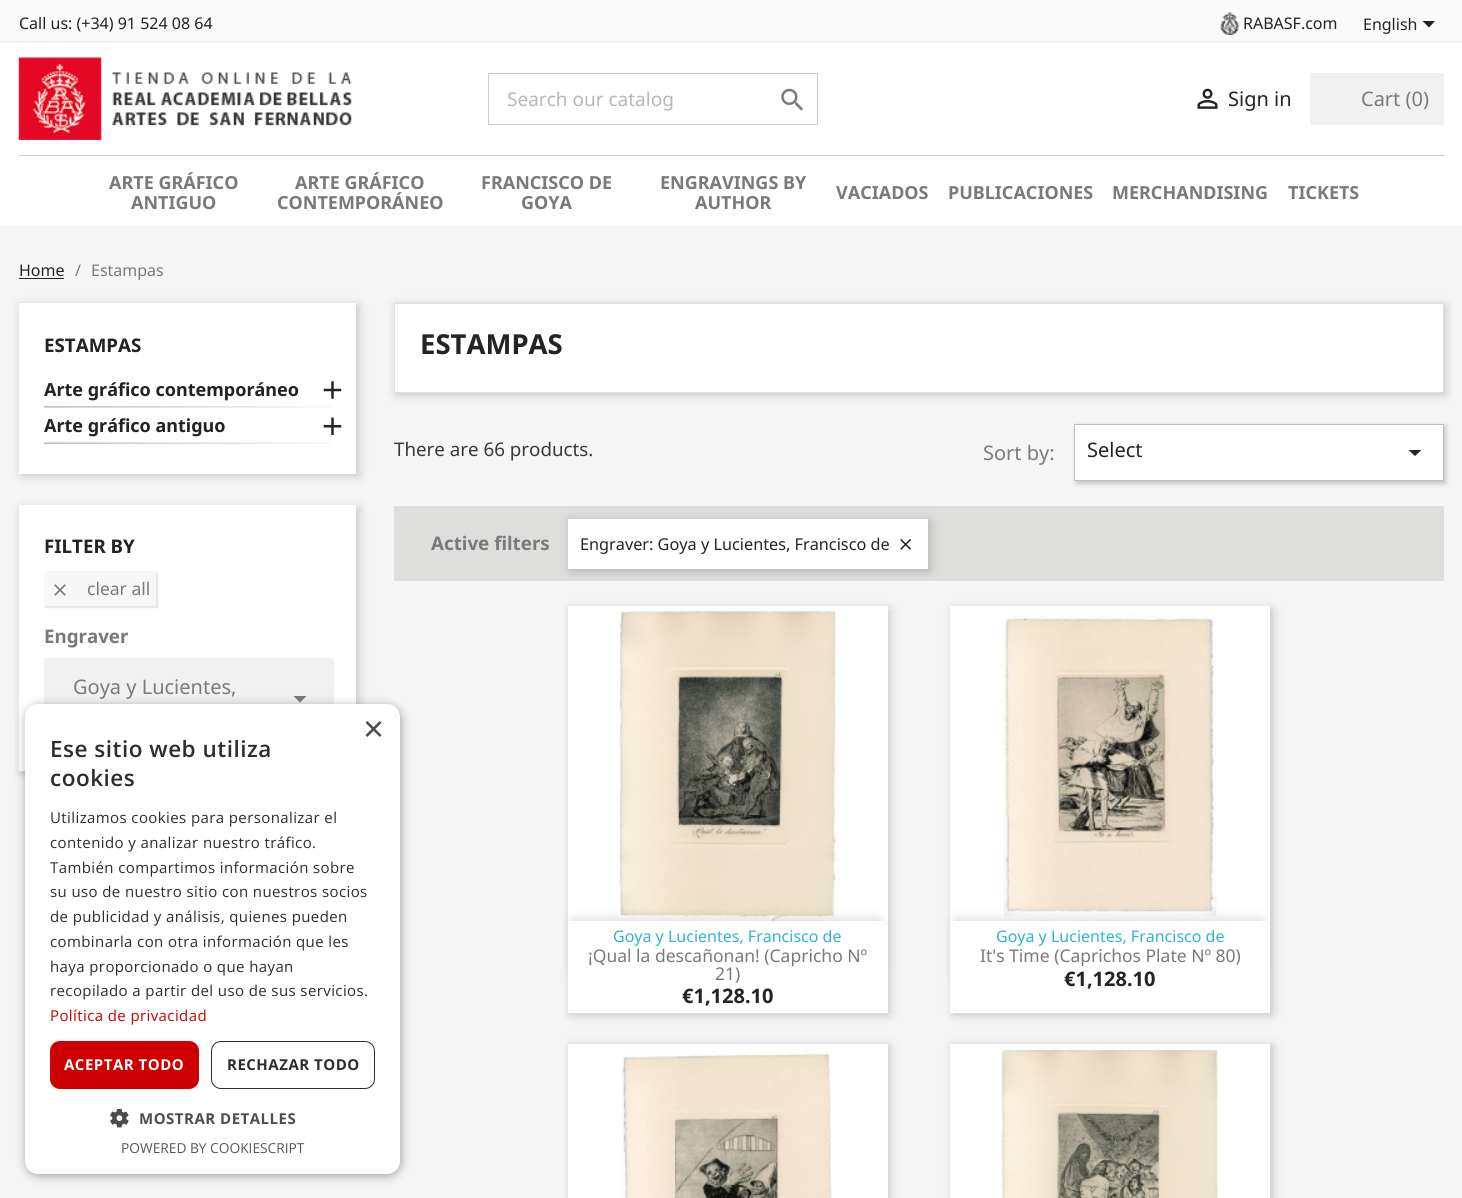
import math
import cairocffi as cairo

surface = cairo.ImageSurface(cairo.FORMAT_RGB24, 1462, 1198)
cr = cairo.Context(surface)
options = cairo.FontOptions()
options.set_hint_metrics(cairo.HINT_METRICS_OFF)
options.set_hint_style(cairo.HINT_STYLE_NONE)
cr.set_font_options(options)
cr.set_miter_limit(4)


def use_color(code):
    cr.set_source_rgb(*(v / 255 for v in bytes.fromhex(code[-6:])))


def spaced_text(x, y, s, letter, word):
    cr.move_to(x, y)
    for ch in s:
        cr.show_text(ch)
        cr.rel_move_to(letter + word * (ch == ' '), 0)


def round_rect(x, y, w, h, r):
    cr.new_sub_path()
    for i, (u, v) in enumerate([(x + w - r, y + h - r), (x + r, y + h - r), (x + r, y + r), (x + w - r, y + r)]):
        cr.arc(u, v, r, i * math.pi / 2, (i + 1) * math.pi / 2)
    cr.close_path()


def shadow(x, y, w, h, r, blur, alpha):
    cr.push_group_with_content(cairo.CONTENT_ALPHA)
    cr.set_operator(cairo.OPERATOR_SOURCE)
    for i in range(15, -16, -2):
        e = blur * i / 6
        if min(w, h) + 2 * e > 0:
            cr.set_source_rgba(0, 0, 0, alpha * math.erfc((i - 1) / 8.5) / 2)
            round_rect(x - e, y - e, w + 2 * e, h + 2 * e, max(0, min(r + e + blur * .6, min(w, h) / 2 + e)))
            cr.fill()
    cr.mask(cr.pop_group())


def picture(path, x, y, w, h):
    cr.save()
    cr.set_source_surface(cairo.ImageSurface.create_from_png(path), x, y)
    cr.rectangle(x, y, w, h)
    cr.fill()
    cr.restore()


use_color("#ffffff")
cr.paint()
use_color("#fafafa")
cr.rectangle(0, 0, 1462, 43)
cr.fill()
use_color("#ece8e8")
cr.rectangle(0, 41, 1462, 1)
cr.fill()
cr.select_font_face("Noto Sans")
cr.set_font_size(16)
use_color("#232323")
cr.move_to(19, 29)
cr.show_text("Call us: (+34) 91 524 08 64")
picture("img1.png", 1220, 12, 19, 23)
cr.move_to(1243, 29)
cr.show_text("RABASF.com")
cr.move_to(1363, 30)
cr.show_text("English")
cr.new_path()
cr.move_to(1422.5, 21)
cr.line_to(1435, 21)
cr.line_to(1429, 27.5)
cr.close_path()
cr.fill()
picture("img2.png", 18, 57, 334, 83)
cr.rectangle(488.5, 73.5, 329, 51)
use_color("#cccccc")
cr.set_line_width(1)
cr.stroke()
cr.set_font_size(19)
use_color("#b7b7b7")
cr.move_to(507, 106)
cr.show_text("Search our catalog")
picture("img3.png", 781, 88, 22, 23)
picture("img4.png", 1197, 88, 21, 21)
cr.set_font_size(20)
use_color("#232323")
cr.move_to(1228, 106)
cr.show_text("Sign in")
use_color("#f1f1f1")
cr.rectangle(1310, 73, 134, 52)
cr.fill()
use_color("#7a7a7a")
cr.move_to(1361, 106)
cr.show_text("Cart (0)")
use_color("#cccccc")
cr.rectangle(19, 155, 1425, 1)
cr.fill()
cr.select_font_face("Noto Sans", cairo.FONT_SLANT_NORMAL, cairo.FONT_WEIGHT_BOLD)
cr.set_font_size(18)
use_color("#7a7a7a")
cr.move_to(109, 189)
cr.show_text("ARTE GRÁFICO")
cr.move_to(131, 209)
cr.show_text("ANTIGUO")
cr.move_to(295, 189)
cr.show_text("ARTE GRÁFICO")
cr.move_to(277, 209)
cr.show_text("CONTEMPORÁNEO")
cr.move_to(481, 189)
cr.show_text("FRANCISCO DE")
cr.move_to(521, 209)
cr.show_text("GOYA")
cr.move_to(660, 189)
cr.show_text("ENGRAVINGS BY")
cr.move_to(695, 209)
cr.show_text("AUTHOR")
cr.move_to(836, 199)
cr.show_text("VACIADOS")
cr.move_to(948, 199)
cr.show_text("PUBLICACIONES")
cr.move_to(1112, 199)
cr.show_text("MERCHANDISING")
cr.move_to(1288, 199)
cr.show_text("TICKETS")
use_color("#f6f6f6")
cr.rectangle(0, 226, 1462, 972)
cr.fill()
cr.select_font_face("Noto Sans")
cr.set_font_size(16)
use_color("#232323")
cr.move_to(19, 276)
cr.show_text("Home")
cr.rectangle(19, 278, 45, 1)
cr.fill()
use_color("#7a7a7a")
cr.move_to(75, 276)
cr.show_text("/")
cr.move_to(91, 276)
cr.show_text("Estampas")
use_color("#000000")
shadow(21, 305, 338, 171, 0, 5, 0.2)
use_color("#ffffff")
cr.rectangle(19, 303, 337, 171)
cr.fill()
cr.select_font_face("Noto Sans", cairo.FONT_SLANT_NORMAL, cairo.FONT_WEIGHT_BOLD)
cr.set_font_size(18.75)
use_color("#232323")
cr.move_to(44, 352)
cr.show_text("ESTAMPAS")
picture("img5.png", 43, 406, 288, 2)
cr.set_font_size(18)
cr.move_to(44, 396)
cr.show_text("Arte gráfico contemporáneo")
picture("img6.png", 323, 381, 19, 18)
picture("img7.png", 43, 442, 288, 2)
cr.move_to(44, 432)
cr.show_text("Arte gráfico antiguo")
picture("img8.png", 323, 417, 19, 18)
use_color("#000000")
shadow(21, 508, 338, 266, 0, 5, 0.2)
use_color("#ffffff")
cr.rectangle(19, 505, 337, 266)
cr.fill()
cr.set_font_size(18.75)
use_color("#232323")
cr.move_to(44, 553)
cr.show_text("FILTER BY")
use_color("#000000")
shadow(45, 573, 113, 35, 0, 0.5, 0.1)
use_color("#f7f7f7")
cr.rectangle(44, 571, 112, 35)
cr.fill()
picture("img9.png", 54, 584, 12, 12)
cr.select_font_face("Noto Sans")
cr.set_font_size(17.5)
use_color("#7a7a7a")
cr.move_to(87, 595)
cr.show_text("clear all")
cr.select_font_face("Noto Sans", cairo.FONT_SLANT_NORMAL, cairo.FONT_WEIGHT_BOLD)
cr.set_font_size(18.75)
cr.move_to(44, 643)
cr.show_text("Engraver")
use_color("#f1f1f1")
shadow(44, 658, 290, 85, 0, 0.5, 1)
use_color("#f1f1f1")
cr.rectangle(44, 658, 1, 1)
cr.fill()
cr.select_font_face("Noto Sans")
cr.set_font_size(20)
use_color("#7a7a7a")
cr.move_to(73, 694)
cr.show_text("Goya y Lucientes,")
cr.new_path()
cr.move_to(293.5, 696)
cr.line_to(306.5, 696)
cr.line_to(300, 702.5)
cr.close_path()
cr.fill()
use_color("#000000")
shadow(396, 305, 1050, 90, 0, 5, 0.2)
use_color("#ffffff")
cr.rectangle(394.5, 303.5, 1049, 89)
cr.fill_preserve()
use_color("#dfdfdf")
cr.stroke()
cr.select_font_face("Noto Sans", cairo.FONT_SLANT_NORMAL, cairo.FONT_WEIGHT_BOLD)
cr.set_font_size(27.5)
use_color("#232323")
cr.move_to(420, 354)
cr.show_text("ESTAMPAS")
cr.select_font_face("Noto Sans")
cr.set_font_size(18.75)
use_color("#393939")
cr.move_to(394, 456)
cr.show_text("There are 66 products.")
cr.set_font_size(20)
use_color("#7a7a7a")
cr.move_to(983, 460)
cr.show_text("Sort by:")
use_color("#000000")
shadow(1076, 426, 370, 58, 0, 2.5, 0.2)
use_color("#ffffff")
cr.rectangle(1074.5, 424.5, 369, 56)
cr.fill_preserve()
use_color("#bfbfbf")
cr.stroke()
use_color("#232323")
cr.move_to(1087, 457)
cr.show_text("Select")
cr.new_path()
cr.move_to(1408.5, 450)
cr.line_to(1421.5, 450)
cr.line_to(1415, 456)
cr.close_path()
cr.fill()
use_color("#dededd")
cr.rectangle(394, 506, 1050, 75)
cr.fill()
cr.select_font_face("Noto Sans", cairo.FONT_SLANT_NORMAL, cairo.FONT_WEIGHT_BOLD)
cr.set_font_size(18.75)
use_color("#7a7a7a")
cr.move_to(431, 550)
cr.show_text("Active filters")
use_color("#000000")
shadow(570, 521, 360, 50, 0, 5, 0.2)
use_color("#ffffff")
cr.rectangle(568, 519, 360, 50)
cr.fill()
cr.select_font_face("Noto Sans")
cr.set_font_size(16.25)
use_color("#232323")
cr.move_to(580, 550)
cr.show_text("Engraver: Goya y Lucientes, Francisco de")
picture("img10.png", 900, 539, 11, 11)
use_color("#000000")
shadow(570, 609, 320, 406, 0, 5, 0.2)
use_color("#ffffff")
cr.rectangle(568, 606, 320, 319)
cr.fill()
picture("img11.png", 613, 609, 229, 313)
cr.save()
cr.set_fill_rule(cairo.FILL_RULE_EVEN_ODD)
cr.new_path()
cr.move_to(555, 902)
cr.line_to(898, 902)
cr.line_to(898, 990)
cr.line_to(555, 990)
cr.close_path()
cr.move_to(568, 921)
cr.line_to(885, 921)
cr.line_to(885, 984)
cr.line_to(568, 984)
cr.close_path()
cr.clip()
use_color("#000000")
shadow(574, 921, 305, 50, 0, 6, 0.2)
cr.restore()
cr.set_source_rgba(1, 1, 1, 0.62)
cr.rectangle(568, 921, 317, 1)
cr.fill()
use_color("#ffffff")
cr.rectangle(568, 925, 320, 88)
cr.fill()
cr.set_font_size(16)
use_color("#2fb5d2")
cr.move_to(613, 942)
cr.show_text("Goya y Lucientes, Francisco de")
cr.set_font_size(17.5)
use_color("#7a7a7a")
cr.move_to(588, 962)
cr.show_text("¡Qual la descañonan! (Capricho Nº")
cr.move_to(715, 980)
cr.show_text("21)")
cr.select_font_face("Noto Sans", cairo.FONT_SLANT_NORMAL, cairo.FONT_WEIGHT_BOLD)
cr.set_font_size(20)
use_color("#232323")
cr.move_to(682, 1003)
cr.show_text("€1,128.10")
use_color("#000000")
shadow(953, 609, 320, 406, 0, 5, 0.2)
use_color("#ffffff")
cr.rectangle(950, 606, 320, 319)
cr.fill()
picture("img12.png", 1003, 609, 214, 308)
cr.save()
cr.set_fill_rule(cairo.FILL_RULE_EVEN_ODD)
cr.new_path()
cr.move_to(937, 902)
cr.line_to(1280, 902)
cr.line_to(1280, 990)
cr.line_to(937, 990)
cr.close_path()
cr.move_to(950, 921)
cr.line_to(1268, 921)
cr.line_to(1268, 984)
cr.line_to(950, 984)
cr.close_path()
cr.clip()
use_color("#000000")
shadow(956, 921, 305, 50, 0, 6, 0.2)
cr.restore()
cr.set_source_rgba(1, 1, 1, 0.62)
cr.rectangle(950, 921, 309, 1)
cr.fill()
use_color("#ffffff")
cr.rectangle(950, 925, 320, 88)
cr.fill()
cr.select_font_face("Noto Sans")
cr.set_font_size(16)
use_color("#2fb5d2")
cr.move_to(996, 942)
cr.show_text("Goya y Lucientes, Francisco de")
cr.set_font_size(17.5)
use_color("#7a7a7a")
cr.move_to(980, 962)
cr.show_text("It's Time (Caprichos Plate Nº 80)")
cr.select_font_face("Noto Sans", cairo.FONT_SLANT_NORMAL, cairo.FONT_WEIGHT_BOLD)
cr.set_font_size(20)
use_color("#232323")
cr.move_to(1064, 986)
cr.show_text("€1,128.10")
use_color("#000000")
shadow(570, 1046, 320, 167, 0, 5, 0.2)
use_color("#ffffff")
cr.rectangle(568, 1044, 320, 154)
cr.fill()
picture("img13.png", 619, 1048, 213, 150)
use_color("#000000")
shadow(953, 1046, 320, 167, 0, 5, 0.2)
use_color("#ffffff")
cr.rectangle(950, 1044, 320, 154)
cr.fill()
picture("img14.png", 999, 1046, 222, 152)
use_color("#000000")
shadow(26, 706, 375, 470, 13, 5, 0.35)
use_color("#ffffff")
round_rect(25, 704, 375, 470, 13)
cr.fill()
cr.select_font_face("Liberation Sans")
cr.set_font_size(36)
use_color("#4d4d4d")
cr.move_to(363, 741)
cr.show_text("×")
cr.select_font_face("Open Sans SemiBold")
cr.set_font_size(22.5)
use_color("#2d2d2d")
spaced_text(50, 757, "Ese sitio web utiliza", 0.5, 0)
spaced_text(50, 786, "cookies", 0.5, 0)
cr.select_font_face("Open Sans")
cr.set_font_size(15)
spaced_text(50, 823, "Utilizamos cookies para personalizar el", 0.4, 0)
spaced_text(50, 848, "contenido y analizar nuestro tráfico.", 0.4, 0)
spaced_text(50, 873, "También compartimos información sobre", 0.4, 0)
spaced_text(50, 897, "su uso de nuestro sitio con nuestros socios", 0.4, 0)
spaced_text(50, 922, "de publicidad y análisis, quienes pueden", 0.4, 0)
spaced_text(50, 947, "combinarla con otra información que les", 0.4, 0)
spaced_text(50, 972, "haya proporcionado o que hayan", 0.4, 0)
spaced_text(50, 996, "recopilado a partir del uso de sus servicios.", 0.4, 0)
use_color("#cc0000")
spaced_text(50, 1021, "Política de privacidad", 0.4, 0)
round_rect(50, 1041, 149, 48, 10)
cr.fill()
cr.select_font_face("Open Sans", cairo.FONT_SLANT_NORMAL, cairo.FONT_WEIGHT_BOLD)
use_color("#ffffff")
spaced_text(64, 1070, "ACEPTAR TODO", 0.5, 0)
round_rect(211.5, 1041.5, 163, 47, 9.5)
use_color("#2d2d2d")
cr.stroke()
spaced_text(227, 1070, "RECHAZAR TODO", 0.5, 0)
picture("img15.png", 110, 1109, 19, 19)
use_color("#4d4d4d")
spaced_text(139, 1124, "MOSTRAR DETALLES", 0.5, 0)
cr.select_font_face("Open Sans")
cr.set_font_size(13.75)
use_color("#575757")
cr.move_to(121, 1153)
cr.show_text("POWERED BY COOKIESCRIPT")
surface.write_to_png("result.png")
